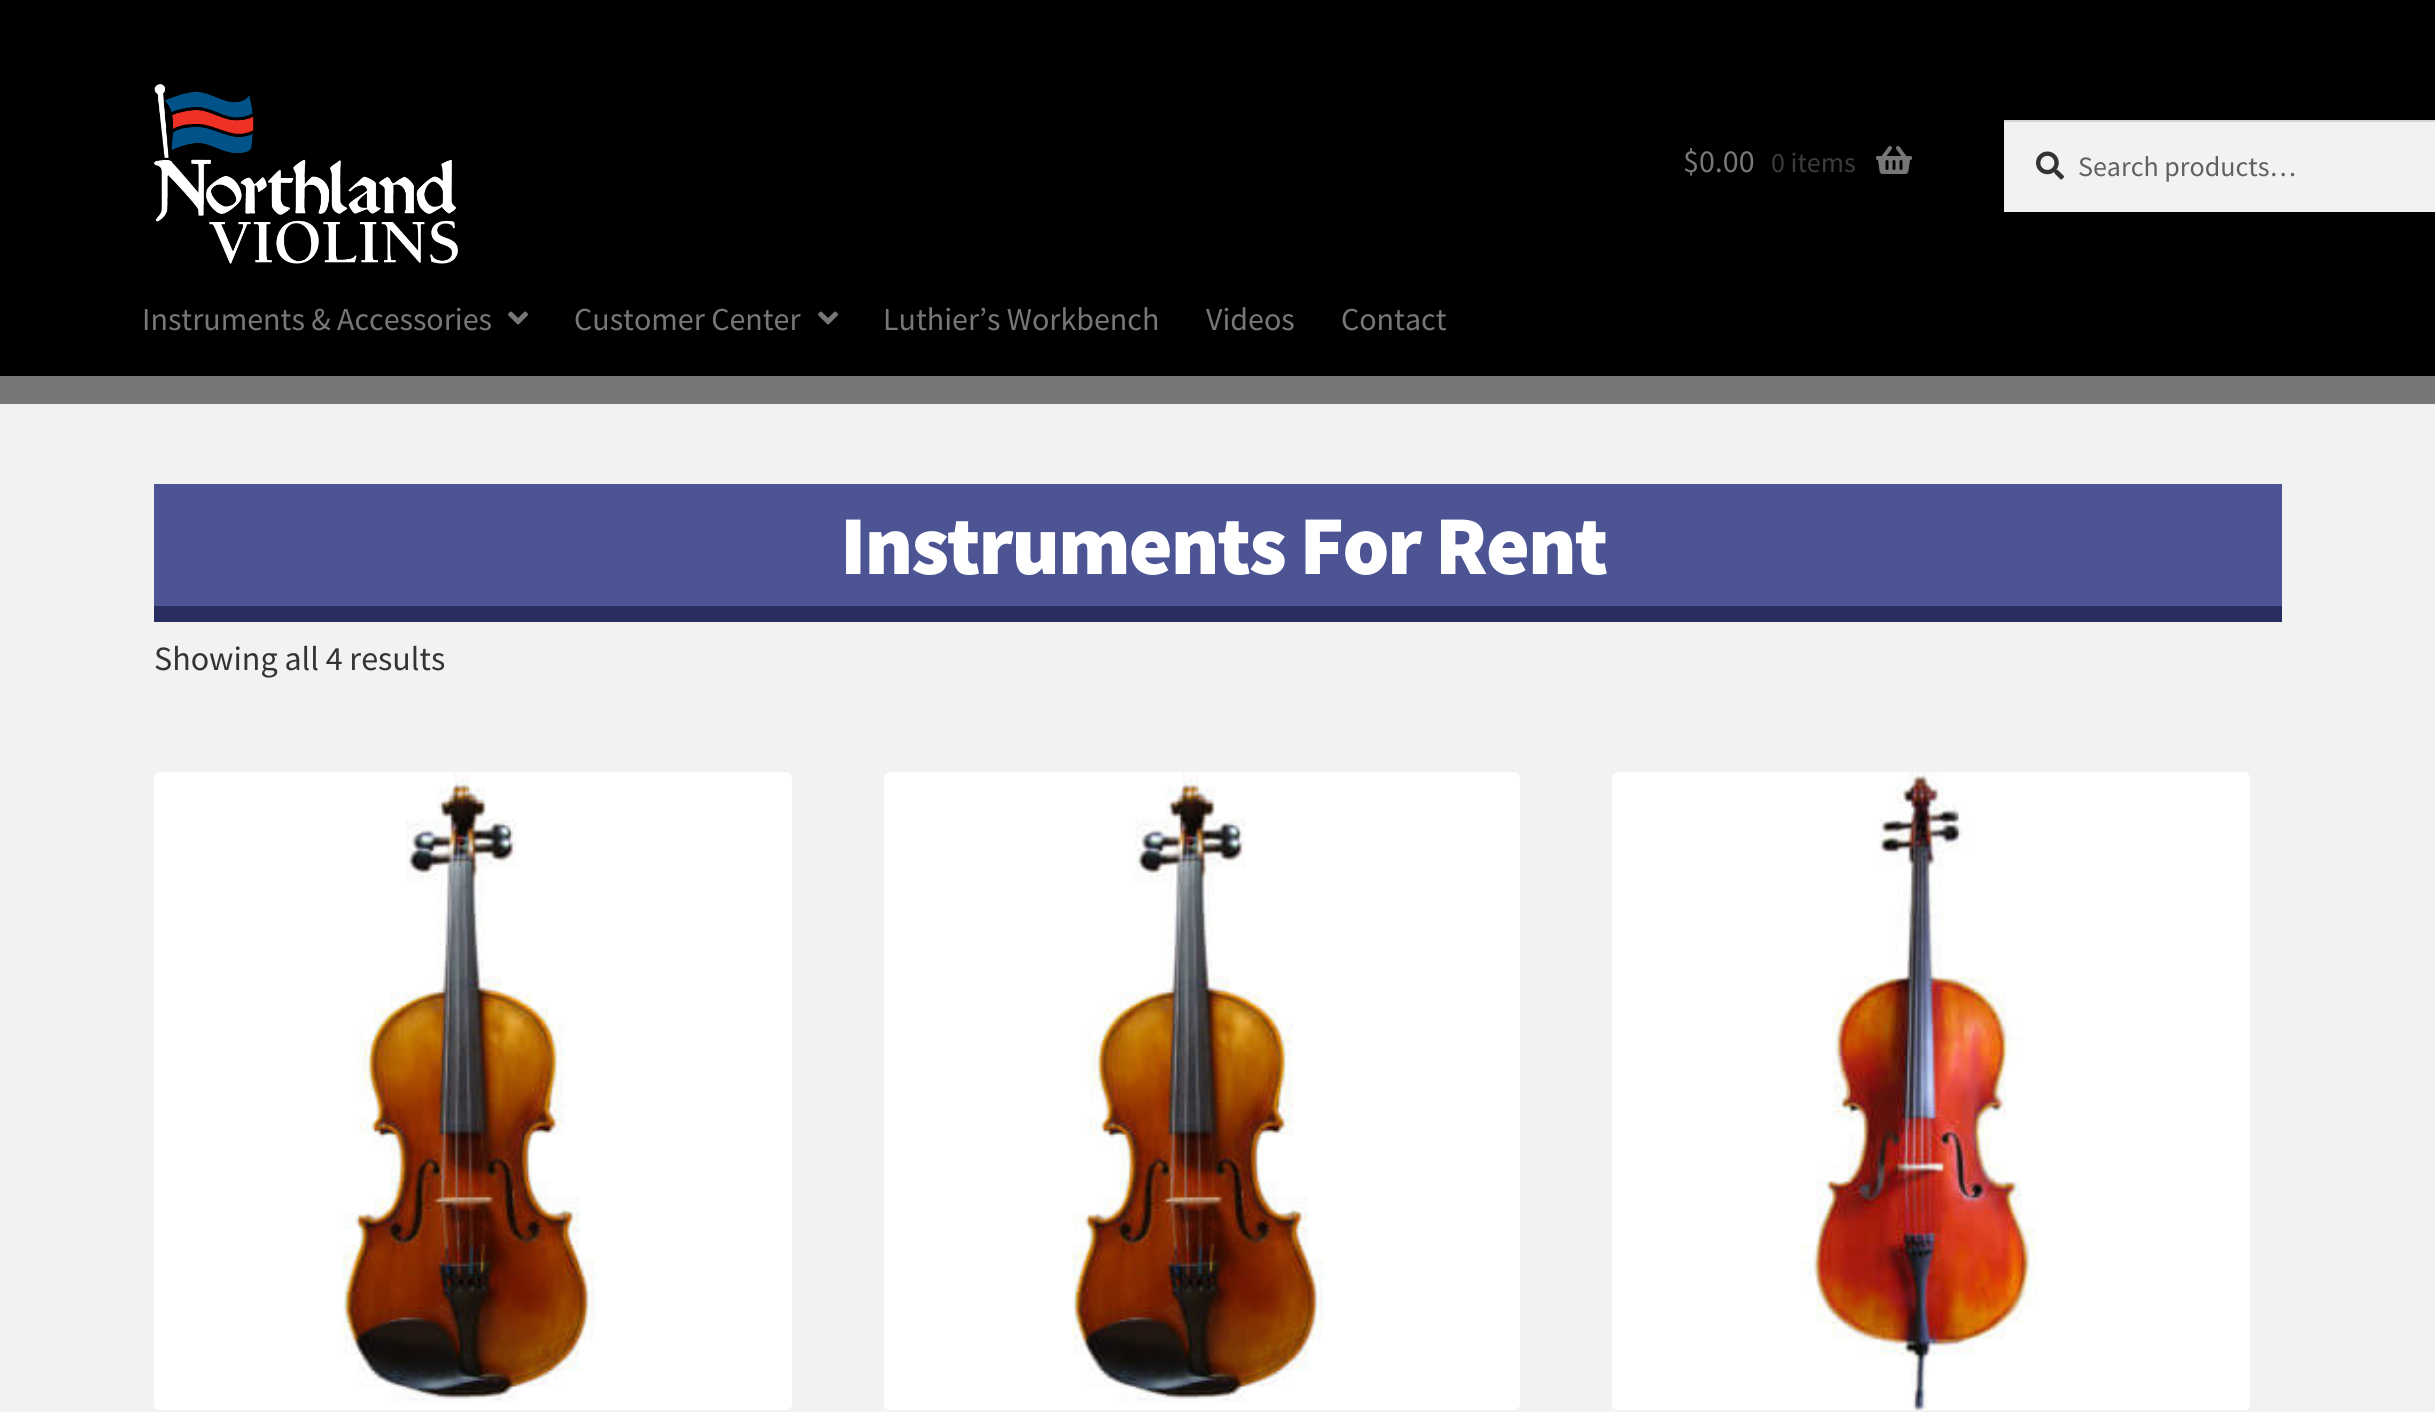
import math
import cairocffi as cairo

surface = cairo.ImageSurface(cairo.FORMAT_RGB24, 2435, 1412)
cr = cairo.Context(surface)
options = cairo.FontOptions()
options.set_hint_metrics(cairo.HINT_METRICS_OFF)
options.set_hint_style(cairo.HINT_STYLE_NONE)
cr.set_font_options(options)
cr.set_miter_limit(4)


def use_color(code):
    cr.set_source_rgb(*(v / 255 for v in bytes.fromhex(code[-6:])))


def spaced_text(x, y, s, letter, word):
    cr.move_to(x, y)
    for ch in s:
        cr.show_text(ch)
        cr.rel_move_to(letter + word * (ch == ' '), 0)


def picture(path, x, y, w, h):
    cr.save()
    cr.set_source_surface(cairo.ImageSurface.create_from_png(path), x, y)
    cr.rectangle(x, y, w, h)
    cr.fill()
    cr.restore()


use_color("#f2f2f2")
cr.paint()
use_color("#000000")
cr.rectangle(0, 0, 2435, 376)
cr.fill()
use_color("#777777")
cr.rectangle(0, 376, 2435, 28)
cr.fill()
picture("img1.png", 154, 84, 304, 180)
cr.select_font_face("Source Sans Pro")
cr.set_font_size(32)
cr.move_to(1683, 172)
cr.show_text("$0.00")
cr.set_font_size(28)
use_color("#3c3c3c")
cr.move_to(1771, 172)
cr.show_text("0 items")
picture("img2.png", 1876, 146, 36, 28)
use_color("#f2f2f2")
cr.rectangle(2004, 122, 431, 90)
cr.fill()
picture("img3.png", 2036, 151, 28, 29)
use_color("#d4d4d4")
cr.rectangle(2004, 120, 431, 2)
cr.fill()
use_color("#616161")
cr.move_to(2078, 176)
cr.show_text("Search products…")
cr.set_font_size(32)
use_color("#777777")
cr.move_to(142, 330)
cr.show_text("Instruments & Accessories")
picture("img4.png", 508, 311, 20, 14)
cr.move_to(574, 330)
cr.show_text("Customer Center")
picture("img4.png", 818, 311, 20, 14)
cr.move_to(883, 330)
cr.show_text("Luthier’s Workbench")
cr.move_to(1206, 330)
cr.show_text("Videos")
cr.move_to(1341, 330)
cr.show_text("Contact")
use_color("#4c5494")
cr.rectangle(154, 484, 2128, 122)
cr.fill()
use_color("#282e60")
cr.rectangle(154, 606, 2128, 16)
cr.fill()
cr.select_font_face("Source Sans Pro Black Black")
cr.set_font_size(83.75)
use_color("#ffffff")
spaced_text(840, 574, "Instruments For Rent", -2, 0)
cr.select_font_face("Source Sans Pro")
cr.set_font_size(34)
use_color("#333333")
cr.move_to(154, 670)
cr.show_text("Showing all 4 results")
picture("img5.png", 154, 772, 638, 638)
picture("img6.png", 884, 772, 636, 638)
picture("img7.png", 1612, 772, 638, 638)
surface.write_to_png("result.png")
